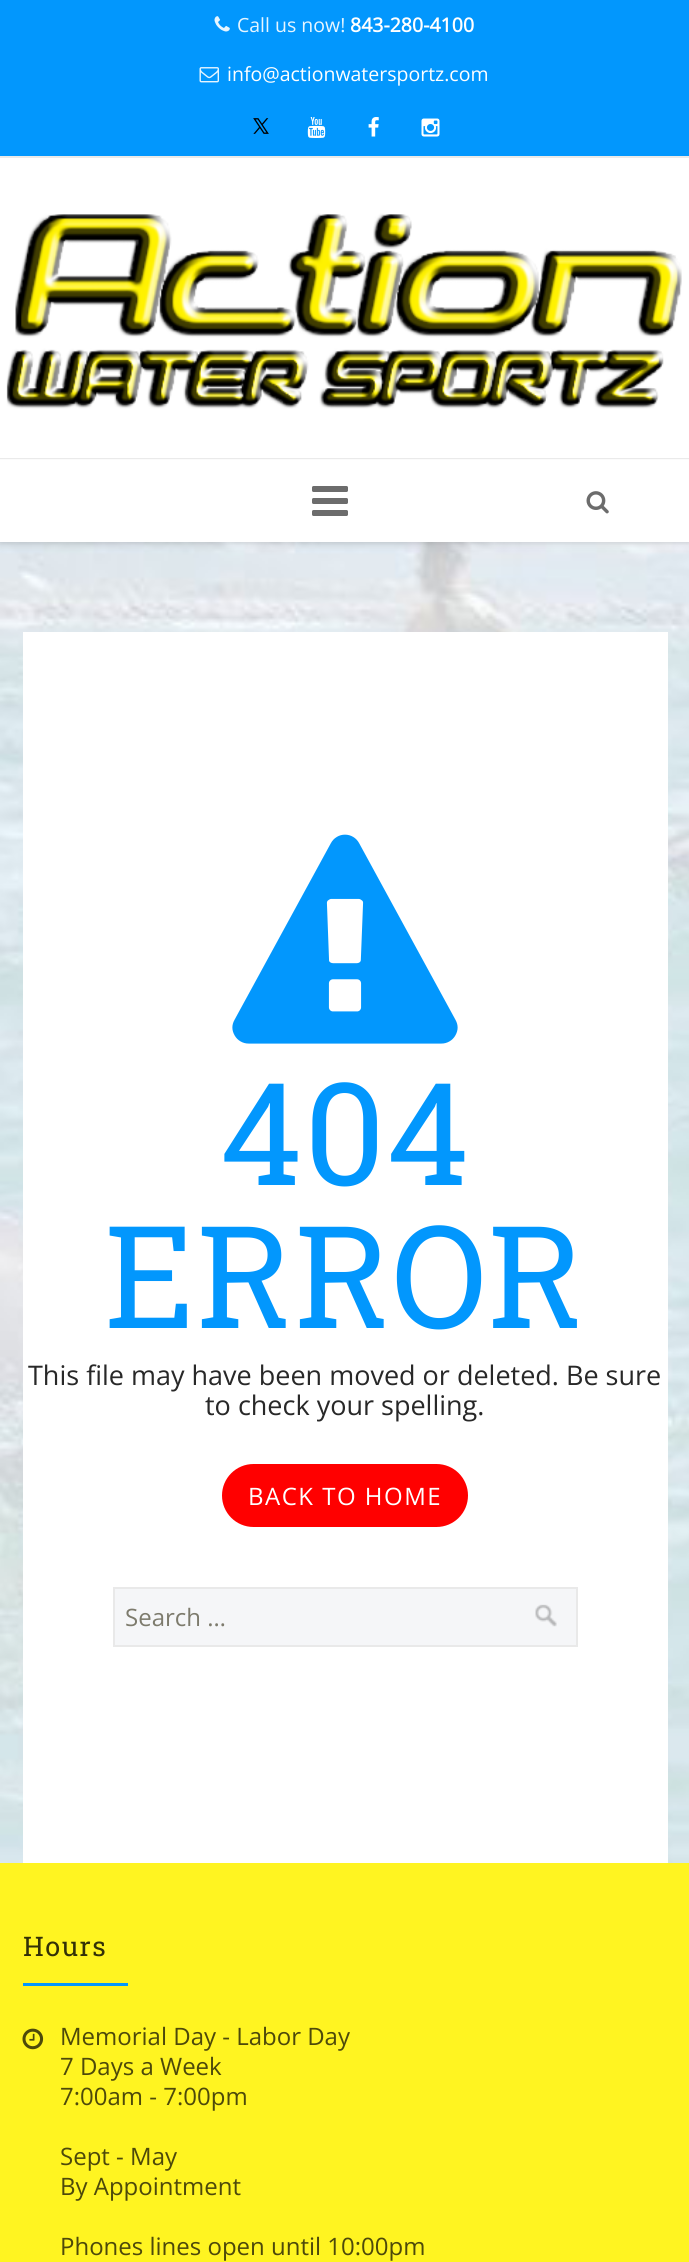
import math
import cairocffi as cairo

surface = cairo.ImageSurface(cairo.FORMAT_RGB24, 689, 2262)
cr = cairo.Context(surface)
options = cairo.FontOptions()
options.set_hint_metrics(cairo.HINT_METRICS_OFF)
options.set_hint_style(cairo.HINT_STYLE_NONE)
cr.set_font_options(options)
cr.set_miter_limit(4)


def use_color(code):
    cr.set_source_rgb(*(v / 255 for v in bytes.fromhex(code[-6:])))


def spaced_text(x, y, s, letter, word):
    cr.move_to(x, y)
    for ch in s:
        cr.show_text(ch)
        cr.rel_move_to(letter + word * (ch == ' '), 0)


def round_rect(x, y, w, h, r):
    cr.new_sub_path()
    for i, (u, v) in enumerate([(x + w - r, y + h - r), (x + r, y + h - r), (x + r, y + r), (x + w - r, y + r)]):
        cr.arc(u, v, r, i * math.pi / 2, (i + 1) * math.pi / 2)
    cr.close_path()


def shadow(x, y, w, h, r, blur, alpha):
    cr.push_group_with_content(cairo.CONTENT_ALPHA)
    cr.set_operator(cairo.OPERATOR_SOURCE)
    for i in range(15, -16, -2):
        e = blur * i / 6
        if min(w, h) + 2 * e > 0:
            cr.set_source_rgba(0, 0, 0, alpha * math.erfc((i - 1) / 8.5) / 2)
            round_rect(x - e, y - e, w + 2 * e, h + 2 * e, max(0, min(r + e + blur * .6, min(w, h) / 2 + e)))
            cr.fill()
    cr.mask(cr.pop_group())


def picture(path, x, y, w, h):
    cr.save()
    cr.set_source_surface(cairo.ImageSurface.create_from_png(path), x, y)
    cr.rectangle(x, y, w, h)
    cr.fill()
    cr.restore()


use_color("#fff421")
cr.paint()
use_color("#0297fd")
cr.rectangle(0, 0, 689, 156)
cr.fill()
use_color("#eaeaea")
cr.rectangle(0, 156, 689, 2)
cr.fill()
picture("img1.png", 214, 16, 16, 16)
cr.select_font_face("Open Sans")
cr.set_font_size(19.5)
use_color("#e6f5ff")
cr.move_to(237, 32)
cr.show_text("Call us now!")
cr.select_font_face("Open Sans", cairo.FONT_SLANT_NORMAL, cairo.FONT_WEIGHT_BOLD)
use_color("#ffffff")
cr.move_to(350, 32)
cr.show_text("843-280-4100")
picture("img2.png", 199, 67, 20, 16)
cr.select_font_face("Open Sans")
cr.move_to(227, 81)
cr.show_text("info@actionwatersportz.com")
picture("img3.png", 253, 118, 16, 16)
picture("img4.png", 307, 117, 19, 21)
picture("img5.png", 368, 117, 11, 20)
picture("img6.png", 421, 118, 19, 19)
picture("img10.png", 0, 542, 689, 1321)
use_color("#000000")
shadow(0, 459, 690, 84, 0, 4, 0.2)
use_color("#ffffff")
cr.rectangle(0, 158, 689, 300)
cr.fill()
picture("img7.png", 6, 213, 676, 196)
cr.rectangle(0, 460, 689, 82)
cr.fill()
use_color("#eaeaea")
cr.rectangle(0, 458, 689, 2)
cr.fill()
cr.set_source_rgba(1, 1, 1, 0.8)
cr.rectangle(0, 459, 689, 1)
cr.fill()
picture("img8.png", 312, 486, 36, 30)
picture("img9.png", 586, 491, 23, 23)
use_color("#ffffff")
cr.rectangle(23, 632, 645, 1231)
cr.fill()
picture("img11.png", 232, 834, 226, 210)
cr.select_font_face("Roboto Slab")
cr.set_font_size(142.5)
use_color("#0297fd")
spaced_text(220, 1185, "404", 1.5, 0)
spaced_text(104, 1328, "ERROR", 1.5, 0)
cr.select_font_face("Open Sans")
cr.set_font_size(27)
use_color("#282828")
cr.move_to(28, 1385)
cr.show_text("This file may have been moved or deleted. Be sure")
cr.move_to(205, 1415)
cr.show_text("to check your spelling.")
use_color("#ff0000")
round_rect(222, 1464, 246, 63, 31.5)
cr.fill()
cr.set_font_size(24)
use_color("#ffffff")
spaced_text(248, 1505, "BACK TO HOME", 1.5, 0)
use_color("#f5f6f8")
cr.rectangle(114, 1588, 463, 58)
cr.fill_preserve()
use_color("#e9e9e9")
cr.stroke()
use_color("#7d7b6d")
cr.move_to(125, 1626)
cr.show_text("Search …")
picture("img12.png", 535, 1604, 22, 23)
cr.select_font_face("Roboto Slab")
cr.set_font_size(27)
use_color("#333107")
spaced_text(23, 1956, "Hours", 1.5, 0)
use_color("#0297fd")
cr.rectangle(23, 1983, 105, 3)
cr.fill()
picture("img13.png", 22, 2028, 22, 22)
cr.select_font_face("Open Sans")
cr.set_font_size(24)
use_color("#4d490a")
cr.move_to(60, 2045)
cr.show_text("Memorial Day - Labor Day")
cr.move_to(60, 2075)
cr.show_text("7 Days a Week")
cr.move_to(60, 2105)
cr.show_text("7:00am - 7:00pm")
cr.move_to(60, 2165)
cr.show_text("Sept - May")
cr.move_to(60, 2195)
cr.show_text("By Appointment")
cr.move_to(60, 2255)
cr.show_text("Phones lines open until 10:00pm")
surface.write_to_png("result.png")
